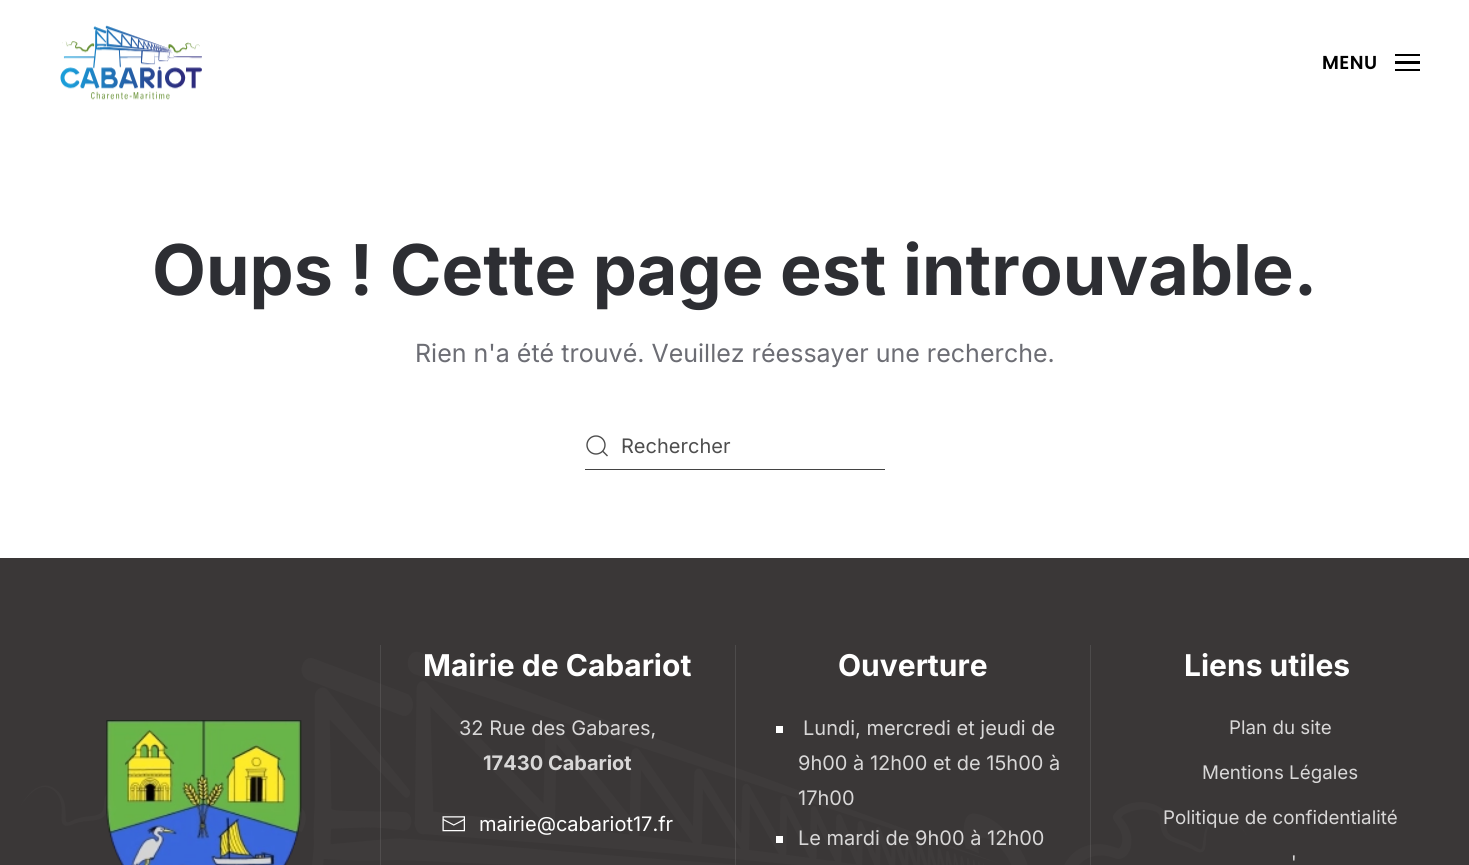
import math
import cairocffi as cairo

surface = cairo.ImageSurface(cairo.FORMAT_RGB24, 1469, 865)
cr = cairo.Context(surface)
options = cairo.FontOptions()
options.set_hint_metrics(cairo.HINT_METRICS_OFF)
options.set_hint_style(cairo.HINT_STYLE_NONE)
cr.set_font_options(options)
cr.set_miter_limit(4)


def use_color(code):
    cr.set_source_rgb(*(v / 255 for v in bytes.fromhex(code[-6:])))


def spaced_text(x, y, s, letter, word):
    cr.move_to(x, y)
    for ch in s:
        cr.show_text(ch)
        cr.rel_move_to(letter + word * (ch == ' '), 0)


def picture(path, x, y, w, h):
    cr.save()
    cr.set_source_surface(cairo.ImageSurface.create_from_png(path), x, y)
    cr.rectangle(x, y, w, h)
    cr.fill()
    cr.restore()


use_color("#ffffff")
cr.paint()
picture("img1.png", 60, 25, 142, 75)
cr.select_font_face("Poppins SemiBold")
cr.set_font_size(18.75)
use_color("#000000")
spaced_text(1322, 69, "MENU", 0.5, 0)
cr.rectangle(1395, 54, 25, 2)
cr.fill()
cr.rectangle(1395, 61, 25, 3)
cr.fill()
cr.rectangle(1395, 69, 25, 2)
cr.fill()
cr.select_font_face("Inter", cairo.FONT_SLANT_NORMAL, cairo.FONT_WEIGHT_BOLD)
cr.set_font_size(70)
use_color("#2d2e33")
cr.move_to(152, 295)
cr.show_text("Oups ! Cette page est introuvable.")
cr.select_font_face("Inter")
cr.set_font_size(25)
use_color("#6c6d74")
cr.move_to(415, 362)
cr.show_text("Rien n'a été trouvé. Veuillez réessayer une recherche.")
cr.new_path()
cr.arc(596, 445, 9, 0, 2 * math.pi)
use_color("#4e4e4e")
cr.set_line_width(1.4)
cr.stroke()
cr.new_path()
cr.move_to(602.5, 451)
cr.line_to(607.5, 456)
cr.close_path()
cr.stroke()
use_color("#434343")
cr.rectangle(585, 469, 300, 1)
cr.fill()
cr.set_font_size(20)
use_color("#4e4e4e")
cr.move_to(621, 453)
cr.show_text("Rechercher")
use_color("#3a3737")
cr.rectangle(0, 558, 1469, 307)
cr.fill()
picture("img2.png", 21, 651, 1226, 214)
picture("img3.png", 106, 720, 196, 145)
cr.set_source_rgba(1, 1, 1, 0.1)
cr.rectangle(380, 645, 1, 220)
cr.fill()
cr.select_font_face("Inter", cairo.FONT_SLANT_NORMAL, cairo.FONT_WEIGHT_BOLD)
cr.set_font_size(30)
use_color("#ffffff")
cr.move_to(423, 676)
cr.show_text("Mairie de Cabariot")
cr.select_font_face("Inter")
cr.set_font_size(20)
use_color("#d8d7d7")
cr.move_to(459, 735)
cr.show_text("32 Rue des Gabares,")
cr.select_font_face("Inter", cairo.FONT_SLANT_NORMAL, cairo.FONT_WEIGHT_BOLD)
cr.move_to(483, 770)
cr.show_text("17430 Cabariot")
picture("img4.png", 442, 816, 23, 16)
cr.select_font_face("Inter")
use_color("#ffffff")
cr.move_to(479, 831)
cr.show_text("mairie@cabariot17.fr")
cr.set_source_rgba(1, 1, 1, 0.1)
cr.rectangle(735, 645, 1, 220)
cr.fill()
cr.select_font_face("Inter", cairo.FONT_SLANT_NORMAL, cairo.FONT_WEIGHT_BOLD)
cr.set_font_size(30)
use_color("#ffffff")
cr.move_to(838, 676)
cr.show_text("Ouverture")
cr.rectangle(776, 726, 7, 7)
cr.fill()
cr.select_font_face("Inter")
cr.set_font_size(20)
use_color("#d8d7d7")
cr.move_to(803, 735)
cr.show_text("Lundi, mercredi et jeudi de")
cr.move_to(798, 770)
cr.show_text("9h00 à 12h00 et de 15h00 à")
cr.move_to(798, 805)
cr.show_text("17h00")
use_color("#ffffff")
cr.rectangle(776, 836, 7, 7)
cr.fill()
use_color("#d8d7d7")
cr.move_to(798, 845)
cr.show_text("Le mardi de 9h00 à 12h00")
cr.set_source_rgba(1, 1, 1, 0.1)
cr.rectangle(1090, 645, 1, 220)
cr.fill()
cr.select_font_face("Inter", cairo.FONT_SLANT_NORMAL, cairo.FONT_WEIGHT_BOLD)
cr.set_font_size(30)
use_color("#ffffff")
cr.move_to(1184, 676)
cr.show_text("Liens utiles")
cr.select_font_face("Inter")
cr.set_font_size(18.75)
use_color("#d8d7d7")
cr.move_to(1229, 734)
cr.show_text("Plan du site")
cr.move_to(1202, 779)
cr.show_text("Mentions Légales")
cr.move_to(1163, 824)
cr.show_text("Politique de confidentialité")
cr.move_to(1291, 869)
cr.show_text("'")
surface.write_to_png("result.png")
